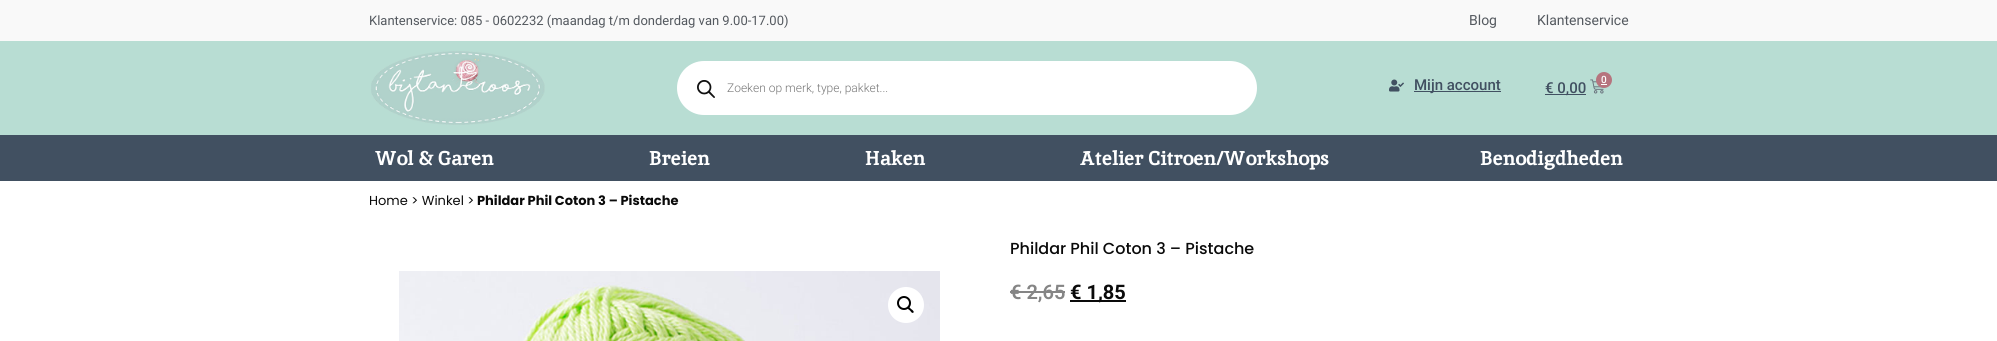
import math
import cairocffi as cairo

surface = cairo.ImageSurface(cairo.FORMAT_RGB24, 1997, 341)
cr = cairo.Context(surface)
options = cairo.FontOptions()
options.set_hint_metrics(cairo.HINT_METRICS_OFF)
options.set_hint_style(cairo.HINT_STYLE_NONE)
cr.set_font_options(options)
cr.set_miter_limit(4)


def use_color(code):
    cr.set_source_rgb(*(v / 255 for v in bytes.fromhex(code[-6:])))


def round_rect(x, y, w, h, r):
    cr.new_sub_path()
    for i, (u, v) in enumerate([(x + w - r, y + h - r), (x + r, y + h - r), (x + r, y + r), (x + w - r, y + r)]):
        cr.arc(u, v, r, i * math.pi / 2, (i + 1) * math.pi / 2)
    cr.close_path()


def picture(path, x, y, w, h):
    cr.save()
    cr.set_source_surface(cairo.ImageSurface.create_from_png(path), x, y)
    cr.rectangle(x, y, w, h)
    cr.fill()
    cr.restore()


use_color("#ffffff")
cr.paint()
use_color("#f9f9f9")
cr.rectangle(0, 0, 1997, 41)
cr.fill()
cr.select_font_face("Roboto")
cr.set_font_size(13)
use_color("#54595f")
cr.move_to(369, 25)
cr.show_text("Klantenservice: 085 - 0602232 (maandag t/m donderdag van 9.00-17.00)")
cr.set_font_size(14)
cr.move_to(1469, 25)
cr.show_text("Blog")
cr.move_to(1537, 25)
cr.show_text("Klantenservice")
use_color("#b8ddd3")
cr.rectangle(0, 41, 1997, 94)
cr.fill()
picture("img1.png", 371, 51, 174, 74)
use_color("#ffffff")
round_rect(677, 61, 580, 54, 27)
cr.fill()
picture("img2.png", 697, 80, 18, 18)
cr.select_font_face("Roboto Light")
cr.set_font_size(12)
use_color("#777777")
cr.move_to(727, 92)
cr.show_text("Zoeken op merk, type, pakket...")
picture("img3.png", 1389, 79, 15, 13)
use_color("#415061")
cr.rectangle(1414, 91, 87, 1)
cr.fill()
cr.select_font_face("Roboto Medium")
cr.set_font_size(15)
cr.move_to(1414, 90)
cr.show_text("Mijn account")
picture("img4.png", 1590, 79, 14, 15)
use_color("#b6747e")
cr.arc(1604, 80, 8, 0, 2 * math.pi)
cr.fill()
cr.set_font_size(10)
use_color("#ffffff")
cr.move_to(1601, 83)
cr.show_text("0")
cr.rectangle(1601, 84, 6, 1)
cr.fill()
use_color("#415061")
cr.rectangle(1545, 94, 41, 1)
cr.fill()
cr.set_font_size(15)
cr.move_to(1545, 93)
cr.show_text("€ 0,00")
cr.rectangle(0, 135, 1997, 46)
cr.fill()
cr.select_font_face("Inika", cairo.FONT_SLANT_NORMAL, cairo.FONT_WEIGHT_BOLD)
cr.set_font_size(20)
use_color("#ffffff")
cr.move_to(375, 165)
cr.show_text("Wol & Garen")
cr.move_to(649, 165)
cr.show_text("Breien")
cr.move_to(865, 165)
cr.show_text("Haken")
cr.move_to(1080, 165)
cr.show_text("Atelier Citroen/Workshops")
cr.move_to(1480, 165)
cr.show_text("Benodigdheden")
cr.select_font_face("Poppins")
cr.set_font_size(13)
use_color("#0a0a0a")
cr.move_to(369, 205)
cr.show_text("Home > Winkel >")
cr.select_font_face("Poppins", cairo.FONT_SLANT_NORMAL, cairo.FONT_WEIGHT_BOLD)
cr.move_to(477, 205)
cr.show_text("Phildar Phil Coton 3 – Pistache")
picture("img5.png", 399, 271, 541, 70)
use_color("#ffffff")
cr.arc(906, 305, 18, 0, 2 * math.pi)
cr.fill()
cr.arc(904, 303, 6, 0, 2 * math.pi)
use_color("#000000")
cr.stroke()
cr.new_path()
cr.move_to(907.5, 307)
cr.curve_to(909, 306, 910.5, 308.5, 911, 309)
cr.curve_to(912, 309.5, 914.5, 311.5, 913.5, 312.5)
cr.curve_to(912, 314, 910.5, 311, 910, 310.5)
cr.curve_to(909, 310, 906.5, 308, 907.5, 307)
cr.close_path()
cr.fill()
cr.select_font_face("Poppins Medium")
cr.set_font_size(16)
use_color("#0a0a0a")
cr.move_to(1010, 254)
cr.show_text("Phildar Phil Coton 3 – Pistache")
cr.select_font_face("Roboto SemiBold")
cr.set_font_size(20)
use_color("#858585")
cr.move_to(1010, 299)
cr.show_text("€ 2,65")
cr.rectangle(1010, 291, 55, 2)
cr.fill()
use_color("#0a0a0a")
cr.rectangle(1070, 300, 56, 2)
cr.fill()
cr.select_font_face("Roboto", cairo.FONT_SLANT_NORMAL, cairo.FONT_WEIGHT_BOLD)
cr.move_to(1070, 299)
cr.show_text("€ 1,85")
surface.write_to_png("result.png")
